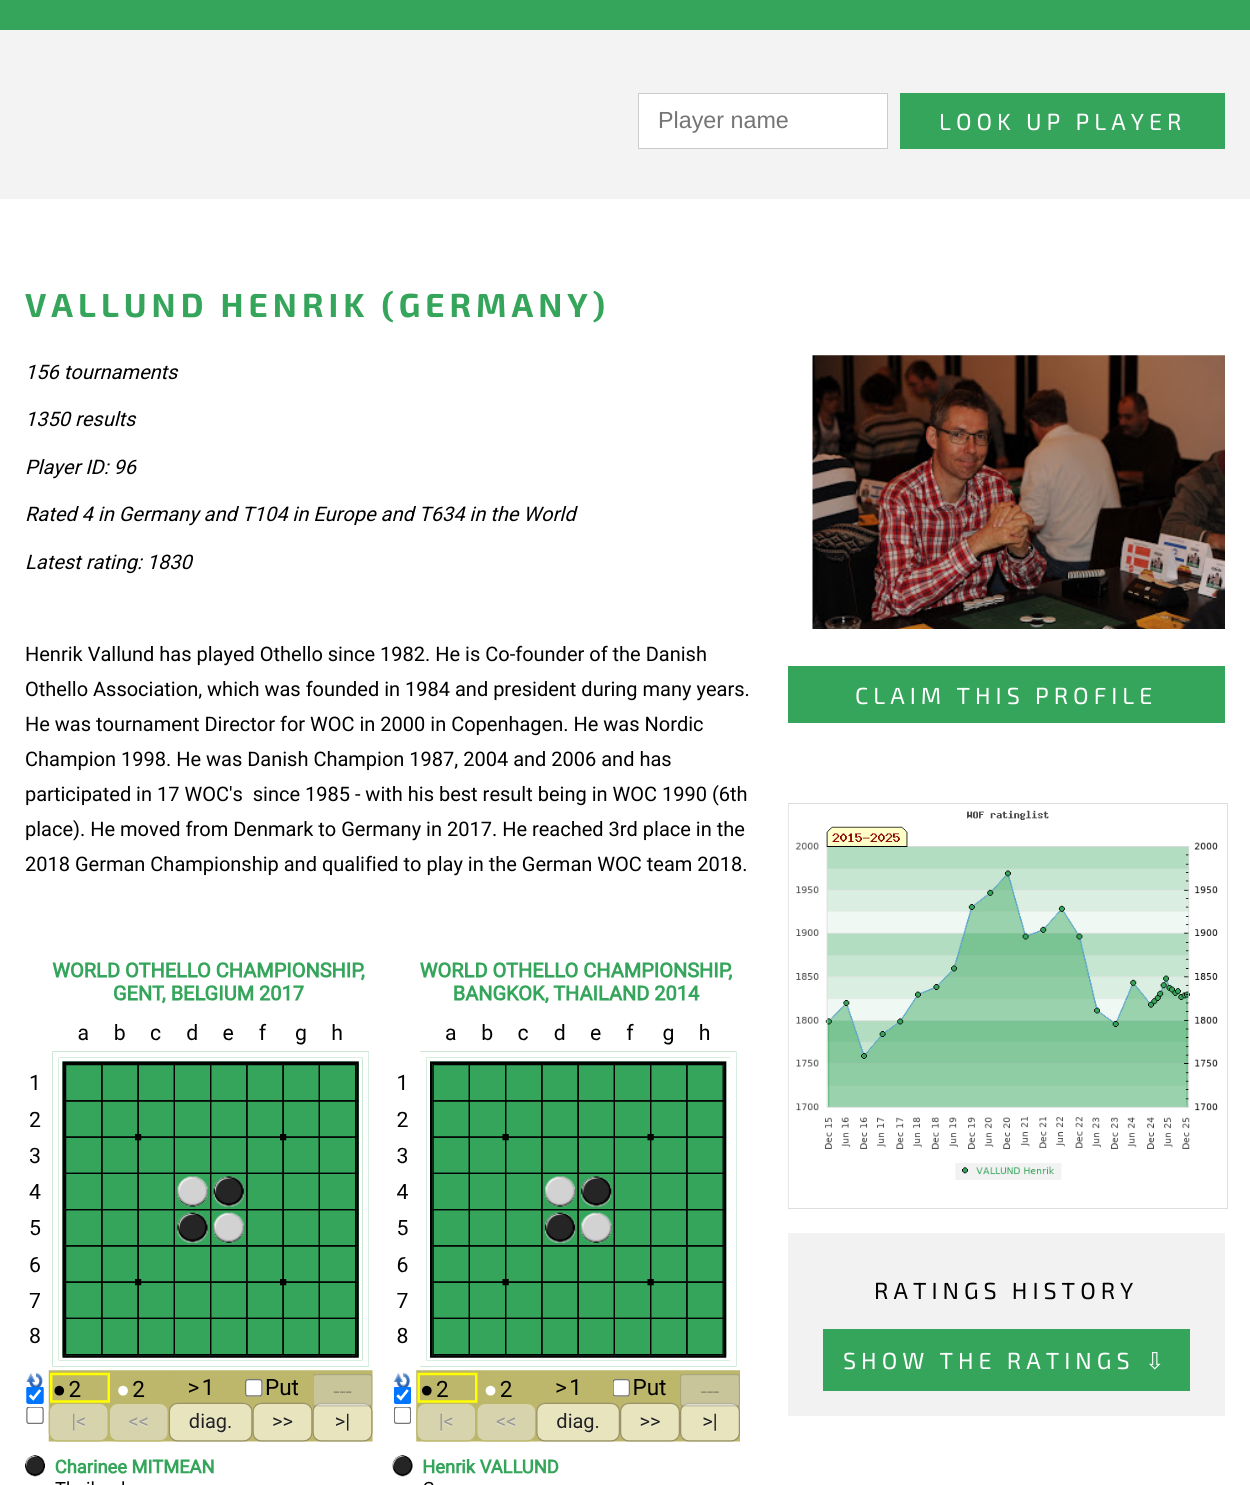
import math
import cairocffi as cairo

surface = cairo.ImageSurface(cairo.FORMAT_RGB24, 1250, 1485)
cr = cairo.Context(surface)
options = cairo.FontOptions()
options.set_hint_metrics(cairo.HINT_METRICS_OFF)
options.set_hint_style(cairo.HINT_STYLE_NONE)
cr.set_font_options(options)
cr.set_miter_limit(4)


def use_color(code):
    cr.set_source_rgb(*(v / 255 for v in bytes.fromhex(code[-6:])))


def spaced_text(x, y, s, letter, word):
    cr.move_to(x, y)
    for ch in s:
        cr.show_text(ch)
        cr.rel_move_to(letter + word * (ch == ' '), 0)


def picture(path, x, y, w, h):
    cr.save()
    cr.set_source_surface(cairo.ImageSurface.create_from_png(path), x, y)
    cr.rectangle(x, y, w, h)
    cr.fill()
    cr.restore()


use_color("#ffffff")
cr.paint()
use_color("#35a55b")
cr.rectangle(0, 0, 1250, 30)
cr.fill()
use_color("#f3f3f3")
cr.rectangle(0, 30, 1250, 169)
cr.fill()
use_color("#ffffff")
cr.rectangle(638.5, 93.5, 249, 55)
cr.fill_preserve()
use_color("#cccccc")
cr.set_line_width(1)
cr.stroke()
cr.select_font_face("Liberation Sans")
cr.set_font_size(23.3)
use_color("#757575")
cr.move_to(658, 128)
cr.show_text("Player name")
use_color("#35a55b")
cr.rectangle(900, 93, 325, 56)
cr.fill()
cr.select_font_face("Exo 2")
use_color("#ffffff")
spaced_text(939, 130, "LOOK UP PLAYER", 5, 0)
cr.select_font_face("Exo 2", cairo.FONT_SLANT_NORMAL, cairo.FONT_WEIGHT_BOLD)
cr.set_font_size(33.3)
use_color("#35a55b")
spaced_text(25, 317, "VALLUND HENRIK (GERMANY)", 5, 0)
cr.select_font_face("Roboto", cairo.FONT_SLANT_ITALIC)
cr.set_font_size(20)
use_color("#000000")
cr.move_to(25, 379)
cr.show_text("156 tournaments")
cr.move_to(25, 426)
cr.show_text("1350 results")
cr.move_to(25, 474)
cr.show_text("Player ID: 96")
cr.move_to(25, 521)
cr.show_text("Rated 4 in Germany and T104 in Europe and T634 in the World")
cr.move_to(25, 569)
cr.show_text("Latest rating: 1830")
cr.select_font_face("Roboto")
cr.move_to(25, 661)
cr.show_text("Henrik Vallund has played Othello since 1982. He is Co-founder of the Danish")
cr.move_to(25, 696)
cr.show_text("Othello Association, which was founded in 1984 and president during many years.")
cr.move_to(25, 731)
cr.show_text("He was tournament Director for WOC in 2000 in Copenhagen. He was Nordic")
cr.move_to(25, 766)
cr.show_text("Champion 1998. He was Danish Champion 1987, 2004 and 2006 and has")
cr.move_to(25, 801)
cr.show_text("participated in 17 WOC's  since 1985 - with his best result being in WOC 1990 (6th")
cr.move_to(25, 836)
cr.show_text("place). He moved from Denmark to Germany in 2017. He reached 3rd place in the")
cr.move_to(25, 871)
cr.show_text("2018 German Championship and qualified to play in the German WOC team 2018.")
picture("img1.png", 25, 962, 348, 523)
picture("img2.png", 392, 962, 348, 523)
picture("img3.png", 812, 355, 413, 274)
use_color("#35a55b")
cr.rectangle(788, 666, 437, 57)
cr.fill()
cr.select_font_face("Exo 2")
cr.set_font_size(23.3)
use_color("#ffffff")
spaced_text(855, 704, "CLAIM THIS PROFILE", 5, 0)
cr.rectangle(788.5, 803.5, 439, 405)
use_color("#dedede")
cr.stroke()
picture("img4.png", 788, 804, 430, 404)
use_color("#f2f2f2")
cr.rectangle(788, 1233, 437, 183)
cr.fill()
use_color("#000000")
spaced_text(874, 1299, "RATINGS HISTORY", 5, 0)
use_color("#35a55b")
cr.rectangle(823, 1329, 367, 62)
cr.fill()
use_color("#ffffff")
spaced_text(843, 1369, "SHOW THE RATINGS", 5, 0)
cr.select_font_face("DejaVu Sans")
spaced_text(1145, 1369, "⇩", 5, 0)
surface.write_to_png("result.png")
